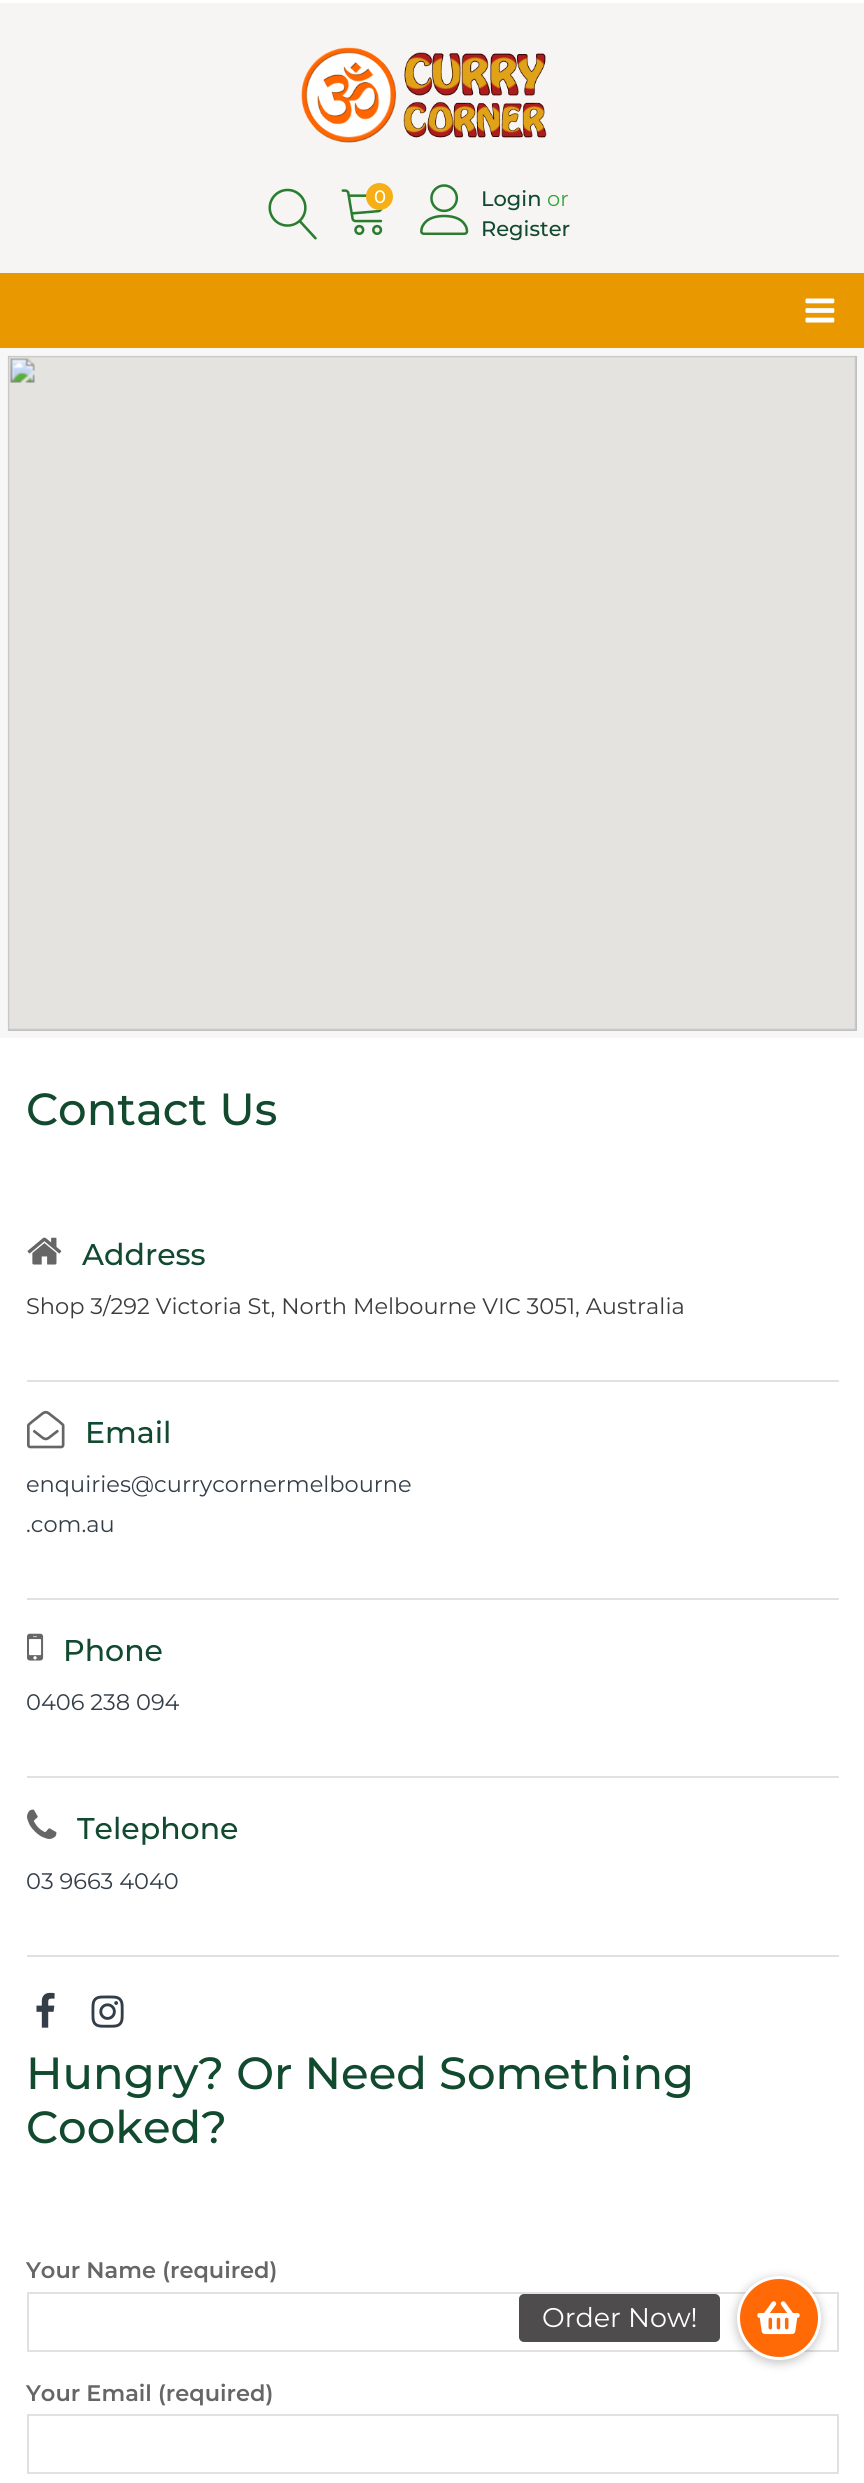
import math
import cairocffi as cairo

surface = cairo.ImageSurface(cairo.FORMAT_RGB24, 864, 2483)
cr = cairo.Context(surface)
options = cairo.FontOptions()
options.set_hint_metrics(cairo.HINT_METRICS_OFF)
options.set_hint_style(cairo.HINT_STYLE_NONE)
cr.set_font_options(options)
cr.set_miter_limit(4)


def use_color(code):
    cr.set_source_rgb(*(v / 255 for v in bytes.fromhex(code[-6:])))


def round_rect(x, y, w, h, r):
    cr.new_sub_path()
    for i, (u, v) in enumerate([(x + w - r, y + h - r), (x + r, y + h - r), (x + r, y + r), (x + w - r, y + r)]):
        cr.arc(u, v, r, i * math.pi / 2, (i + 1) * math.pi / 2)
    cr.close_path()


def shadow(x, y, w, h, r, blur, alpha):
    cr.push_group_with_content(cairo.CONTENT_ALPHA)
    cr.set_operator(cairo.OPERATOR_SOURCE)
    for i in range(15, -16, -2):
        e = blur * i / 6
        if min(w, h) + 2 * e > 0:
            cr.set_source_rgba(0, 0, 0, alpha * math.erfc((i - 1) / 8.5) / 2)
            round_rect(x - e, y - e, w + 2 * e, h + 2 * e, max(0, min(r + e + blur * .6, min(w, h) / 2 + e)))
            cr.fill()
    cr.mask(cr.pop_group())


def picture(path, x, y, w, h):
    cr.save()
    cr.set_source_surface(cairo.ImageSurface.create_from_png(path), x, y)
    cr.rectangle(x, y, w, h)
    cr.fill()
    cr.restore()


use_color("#ffffff")
cr.paint()
use_color("#f7f5f3")
cr.rectangle(0, 3, 864, 270)
cr.fill()
picture("img1.png", 301, 47, 246, 96)
picture("img2.png", 268, 188, 49, 52)
picture("img3.png", 341, 189, 42, 46)
use_color("#f6af14")
cr.arc(379.5, 196.5, 13.5, 0, 2 * math.pi)
cr.fill()
cr.select_font_face("Montserrat Medium")
cr.set_font_size(18)
use_color("#ffffff")
cr.move_to(374, 203)
cr.show_text("0")
picture("img4.png", 420, 184, 49, 51)
cr.set_font_size(21)
use_color("#124a2f")
cr.move_to(481, 206)
cr.show_text("Login")
cr.select_font_face("Montserrat")
use_color("#37a33c")
cr.move_to(547, 206)
cr.show_text("or")
cr.select_font_face("Montserrat Medium")
use_color("#124a2f")
cr.move_to(481, 236)
cr.show_text("Register")
use_color("#ea9800")
cr.rectangle(0, 273, 864, 75)
cr.fill()
picture("img5.png", 805, 298, 30, 25)
use_color("#f7f7f7")
cr.rectangle(0, 348, 864, 690)
cr.fill()
picture("img6.png", 7, 355, 850, 676)
cr.set_font_size(45)
use_color("#124a2f")
cr.move_to(26, 1125)
cr.show_text("Contact Us")
use_color("#e1e1e1")
cr.rectangle(27, 1380, 812, 2)
cr.fill()
picture("img7.png", 27, 1237, 35, 28)
cr.set_font_size(30)
use_color("#124a2f")
cr.move_to(82, 1265)
cr.show_text("Address")
cr.select_font_face("Montserrat")
cr.set_font_size(22.5)
use_color("#3c3c3c")
cr.move_to(26, 1314)
cr.show_text("Shop 3/292 Victoria St, North Melbourne VIC 3051, Australia")
use_color("#e1e1e1")
cr.rectangle(27, 1598, 812, 2)
cr.fill()
picture("img8.png", 27, 1410, 38, 39)
cr.select_font_face("Montserrat Medium")
cr.set_font_size(30)
use_color("#124a2f")
cr.move_to(85, 1443)
cr.show_text("Email")
cr.select_font_face("Montserrat")
cr.set_font_size(22.5)
use_color("#333e48")
cr.move_to(26, 1492)
cr.show_text("enquiries@currycornermelbourne")
cr.move_to(26, 1532)
cr.show_text(".com.au")
use_color("#e1e1e1")
cr.rectangle(27, 1776, 812, 2)
cr.fill()
picture("img9.png", 27, 1633, 17, 28)
cr.select_font_face("Montserrat Medium")
cr.set_font_size(30)
use_color("#124a2f")
cr.move_to(63, 1661)
cr.show_text("Phone")
cr.select_font_face("Montserrat")
cr.set_font_size(22.5)
use_color("#333e48")
cr.move_to(26, 1710)
cr.show_text("0406 238 094")
use_color("#e1e1e1")
cr.rectangle(27, 1955, 812, 2)
cr.fill()
picture("img10.png", 27, 1809, 30, 30)
cr.select_font_face("Montserrat Medium")
cr.set_font_size(30)
use_color("#124a2f")
cr.move_to(77, 1839)
cr.show_text("Telephone")
cr.select_font_face("Montserrat")
cr.set_font_size(22.5)
use_color("#333e48")
cr.move_to(26, 1889)
cr.show_text("03 9663 4040")
picture("img11.png", 36, 1992, 19, 36)
picture("img12.png", 91, 1995, 33, 33)
cr.select_font_face("Montserrat Medium")
cr.set_font_size(45)
use_color("#124a2f")
cr.move_to(26, 2089)
cr.show_text("Hungry? Or Need Something")
cr.move_to(26, 2143)
cr.show_text("Cooked?")
cr.select_font_face("Montserrat SemiBold")
cr.set_font_size(22.5)
use_color("#666666")
cr.move_to(26, 2278)
cr.show_text("Your Name (required)")
cr.rectangle(28, 2293, 810, 58)
use_color("#e1e1e1")
cr.stroke()
use_color("#666666")
cr.move_to(26, 2401)
cr.show_text("Your Email (required)")
cr.rectangle(28, 2415, 810, 58)
use_color("#e1e1e1")
cr.stroke()
use_color("#000000")
shadow(735, 2277, 87, 87, 43.5, 4.5, 0.2)
use_color("#ff6a06")
cr.arc(779, 2318, 40.5, 0, 2 * math.pi)
cr.fill_preserve()
use_color("#ffffff")
cr.set_line_width(3)
cr.stroke()
use_color("#4e4c4c")
round_rect(519, 2294, 201, 48, 5)
cr.fill()
cr.select_font_face("Montserrat")
cr.set_font_size(27)
use_color("#ffffff")
cr.move_to(542, 2327)
cr.show_text("Order Now!")
picture("img13.png", 757, 2301, 43, 34)
surface.write_to_png("result.png")
